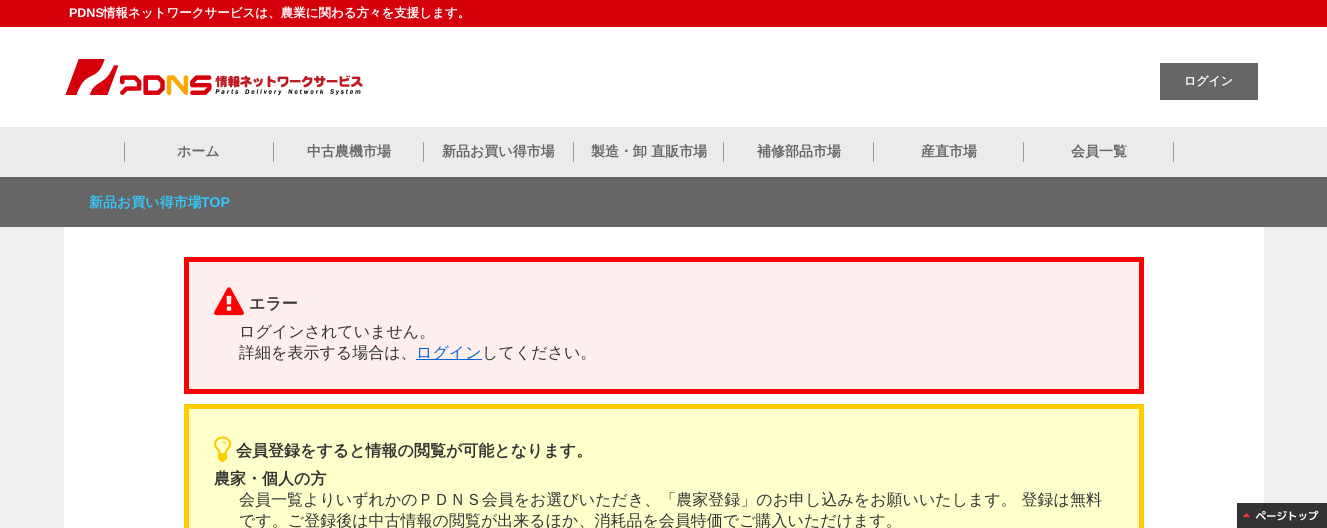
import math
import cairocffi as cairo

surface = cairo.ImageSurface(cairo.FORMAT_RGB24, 1327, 528)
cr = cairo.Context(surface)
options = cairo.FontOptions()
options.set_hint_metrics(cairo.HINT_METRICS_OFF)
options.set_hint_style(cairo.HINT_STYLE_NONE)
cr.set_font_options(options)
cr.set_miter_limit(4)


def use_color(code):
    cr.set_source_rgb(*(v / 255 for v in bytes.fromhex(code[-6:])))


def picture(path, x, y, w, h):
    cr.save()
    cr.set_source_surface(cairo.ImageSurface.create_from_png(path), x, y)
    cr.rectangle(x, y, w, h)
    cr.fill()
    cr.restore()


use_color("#ffffff")
cr.paint()
use_color("#d5000c")
cr.rectangle(0, 0, 1327, 27)
cr.fill()
cr.select_font_face("Liberation Sans", cairo.FONT_SLANT_NORMAL, cairo.FONT_WEIGHT_BOLD)
cr.set_font_size(12.5)
use_color("#ffffff")
cr.move_to(69, 17)
cr.show_text("PDNS")
cr.select_font_face("WenQuanYi Zen Hei", cairo.FONT_SLANT_NORMAL, cairo.FONT_WEIGHT_BOLD)
cr.move_to(103, 17)
cr.show_text("情報ネットワークサービスは、農業に関わる方々を支援します。")
picture("img1.png", 65, 59, 298, 36)
use_color("#666666")
cr.rectangle(1160, 63, 98, 37)
cr.fill()
cr.set_font_size(12)
use_color("#ffffff")
cr.move_to(1184, 85)
cr.show_text("ログイン")
use_color("#ebebeb")
cr.rectangle(0, 127, 1327, 50)
cr.fill()
use_color("#999999")
cr.rectangle(124, 142, 1, 20)
cr.fill()
cr.set_font_size(14)
use_color("#666666")
cr.move_to(177, 156)
cr.show_text("ホーム")
use_color("#999999")
cr.rectangle(273, 142, 1, 20)
cr.fill()
use_color("#666666")
cr.move_to(307, 156)
cr.show_text("中古農機市場")
use_color("#999999")
cr.rectangle(423, 142, 1, 20)
cr.fill()
use_color("#666666")
cr.move_to(442, 156)
cr.show_text("新品お買い得市場")
use_color("#999999")
cr.rectangle(573, 142, 1, 20)
cr.fill()
use_color("#666666")
cr.move_to(591, 156)
cr.show_text("製造・卸 直販市場")
use_color("#999999")
cr.rectangle(723, 142, 1, 20)
cr.fill()
use_color("#666666")
cr.move_to(757, 156)
cr.show_text("補修部品市場")
use_color("#999999")
cr.rectangle(873, 142, 1, 20)
cr.fill()
use_color("#666666")
cr.move_to(921, 156)
cr.show_text("産直市場")
use_color("#999999")
cr.rectangle(1023, 142, 1, 20)
cr.fill()
use_color("#666666")
cr.move_to(1071, 156)
cr.show_text("会員一覧")
use_color("#999999")
cr.rectangle(1173, 142, 1, 20)
cr.fill()
use_color("#666666")
cr.rectangle(0, 177, 1327, 50)
cr.fill()
use_color("#33c9fb")
cr.move_to(89, 207)
cr.show_text("新品お買い得市場")
cr.select_font_face("Liberation Sans", cairo.FONT_SLANT_NORMAL, cairo.FONT_WEIGHT_BOLD)
cr.move_to(201, 207)
cr.show_text("TOP")
use_color("#f0f0f0")
cr.rectangle(0, 227, 1327, 301)
cr.fill()
use_color("#ffffff")
cr.rectangle(64, 227, 1200, 301)
cr.fill()
use_color("#ffeeee")
cr.rectangle(186.5, 259.5, 955, 132)
cr.fill_preserve()
use_color("#ff0000")
cr.set_line_width(5)
cr.stroke()
picture("img2.png", 214, 287, 30, 29)
cr.select_font_face("WenQuanYi Zen Hei", cairo.FONT_SLANT_NORMAL, cairo.FONT_WEIGHT_BOLD)
cr.set_font_size(16)
use_color("#333333")
cr.move_to(249, 309)
cr.show_text("エラー")
cr.select_font_face("WenQuanYi Zen Hei Medium")
cr.move_to(239, 337)
cr.show_text("ログインされていません。")
cr.move_to(239, 358)
cr.show_text("詳細を表示する場合は、")
use_color("#0265d2")
cr.rectangle(416, 359, 66, 1)
cr.fill()
cr.move_to(416, 358)
cr.show_text("ログイン")
use_color("#333333")
cr.move_to(482, 358)
cr.show_text("してください。")
use_color("#ffffcc")
cr.rectangle(186.5, 406.5, 955, 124)
cr.fill_preserve()
use_color("#ffcc00")
cr.stroke()
picture("img3.png", 214, 436, 18, 27)
cr.select_font_face("WenQuanYi Zen Hei", cairo.FONT_SLANT_NORMAL, cairo.FONT_WEIGHT_BOLD)
use_color("#333333")
cr.move_to(236, 456)
cr.show_text("会員登録をすると情報の閲覧が可能となります。")
cr.move_to(214, 484)
cr.show_text("農家・個人の方")
cr.select_font_face("WenQuanYi Zen Hei Medium")
cr.move_to(239, 505)
cr.show_text("会員一覧よりいずれかのＰＤＮＳ会員をお選びいただき、「農家登録」のお申し込みをお願いいたします。 登録は無料")
cr.move_to(239, 526)
cr.show_text("です。ご登録後は中古情報の閲覧が出来るほか、消耗品を会員特価でご購入いただけます。")
picture("img4.png", 1237, 503, 90, 25)
surface.write_to_png("result.png")
